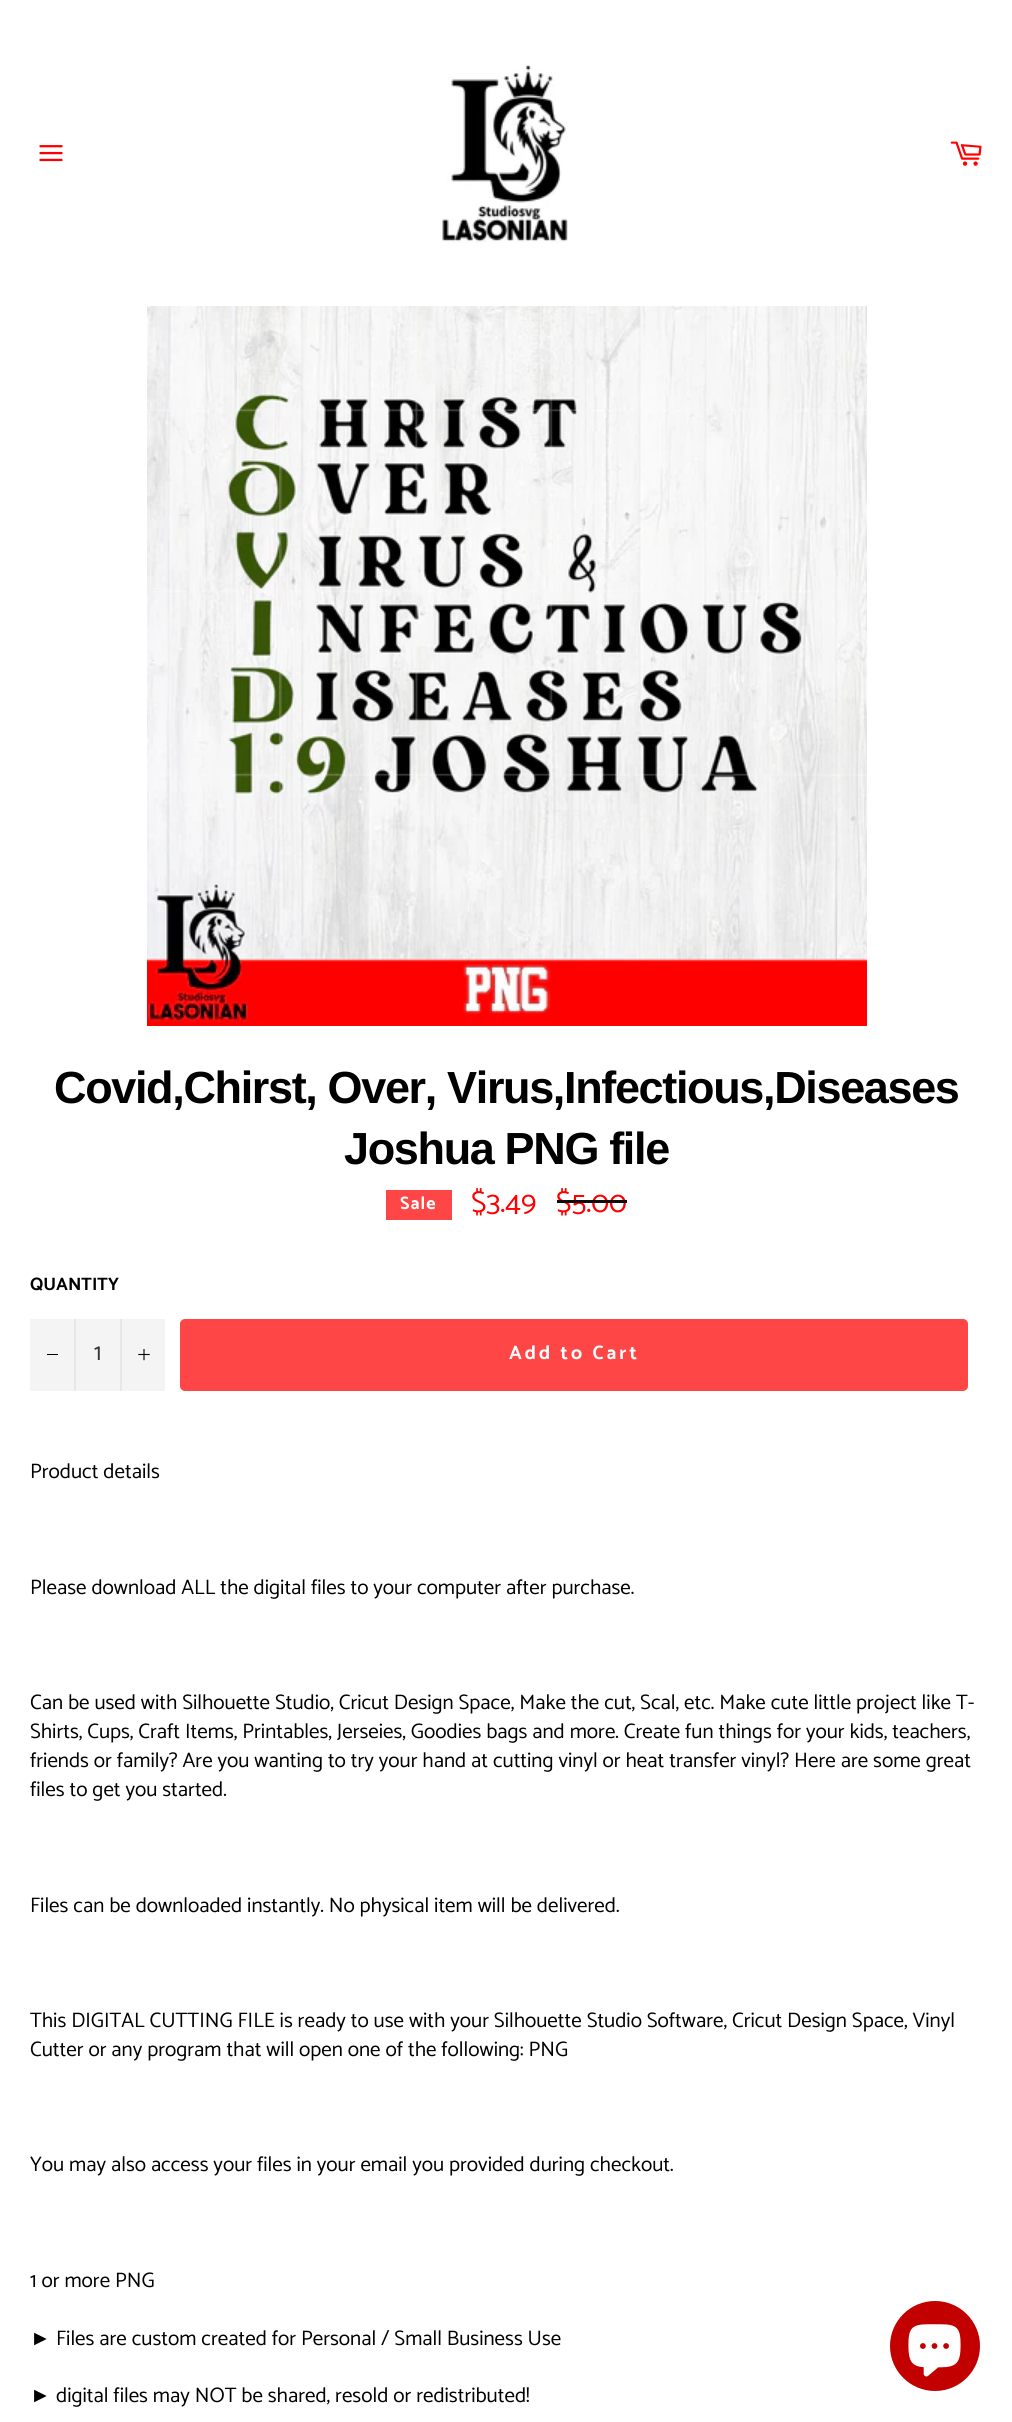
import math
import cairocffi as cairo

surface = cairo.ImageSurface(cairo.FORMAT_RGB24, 1012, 2422)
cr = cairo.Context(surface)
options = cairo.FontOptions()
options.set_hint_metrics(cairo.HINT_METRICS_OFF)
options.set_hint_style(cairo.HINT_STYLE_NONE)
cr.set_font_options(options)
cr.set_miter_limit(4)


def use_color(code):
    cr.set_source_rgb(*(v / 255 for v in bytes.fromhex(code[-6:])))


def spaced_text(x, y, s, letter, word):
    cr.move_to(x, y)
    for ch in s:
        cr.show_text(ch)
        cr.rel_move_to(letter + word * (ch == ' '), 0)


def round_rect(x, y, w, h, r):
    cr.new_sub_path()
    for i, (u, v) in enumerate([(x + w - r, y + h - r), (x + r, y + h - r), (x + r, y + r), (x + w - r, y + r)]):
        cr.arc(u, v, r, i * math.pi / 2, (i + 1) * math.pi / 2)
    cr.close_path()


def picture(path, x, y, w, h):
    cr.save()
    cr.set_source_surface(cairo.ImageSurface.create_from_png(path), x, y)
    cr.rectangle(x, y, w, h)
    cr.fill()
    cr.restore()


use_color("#ffffff")
cr.paint()
picture("img1.png", 39, 145, 24, 17)
picture("img2.png", 442, 64, 126, 179)
picture("img3.png", 950, 141, 32, 25)
picture("img4.png", 147, 306, 720, 720)
cr.select_font_face("Liberation Sans", cairo.FONT_SLANT_NORMAL, cairo.FONT_WEIGHT_BOLD)
cr.set_font_size(45)
use_color("#000000")
spaced_text(54, 1103, "Covid,Chirst, Over, Virus,Infectious,Diseases", -1.35, 0)
spaced_text(344, 1164, "Joshua PNG file", -1.35, 0)
use_color("#ff4646")
cr.rectangle(386, 1190, 66, 30)
cr.fill()
cr.select_font_face("Catamaran", cairo.FONT_SLANT_NORMAL, cairo.FONT_WEIGHT_BOLD)
cr.set_font_size(18)
use_color("#ffffff")
spaced_text(400, 1209, "Sale", 1, 0)
cr.select_font_face("Catamaran")
cr.set_font_size(30)
use_color("#ff0000")
cr.move_to(471, 1212)
cr.show_text("$3.49")
cr.move_to(556, 1212)
cr.show_text("$5.00")
use_color("#0d0d0d")
cr.rectangle(557, 1200, 70, 3)
cr.fill()
cr.select_font_face("Catamaran", cairo.FONT_SLANT_NORMAL, cairo.FONT_WEIGHT_BOLD)
cr.set_font_size(18)
use_color("#000000")
cr.move_to(30, 1290)
cr.show_text("QUANTITY")
use_color("#f4f4f4")
cr.rectangle(30, 1319, 135, 72)
cr.fill()
use_color("#e7e7e7")
cr.rectangle(74, 1319, 2, 72)
cr.fill()
use_color("#000000")
cr.rectangle(47, 1354, 11, 1)
cr.fill()
cr.select_font_face("Catamaran")
cr.set_font_size(24)
use_color("#333333")
cr.move_to(94, 1360)
cr.show_text("1")
use_color("#e7e7e7")
cr.rectangle(120, 1319, 2, 72)
cr.fill()
picture("img5.png", 138, 1349, 12, 12)
use_color("#ff4646")
round_rect(180, 1319, 788, 72, 5)
cr.fill()
cr.select_font_face("Catamaran", cairo.FONT_SLANT_NORMAL, cairo.FONT_WEIGHT_BOLD)
cr.set_font_size(19.5)
use_color("#ffffff")
spaced_text(509, 1359, "Add to Cart", 3, 0)
cr.select_font_face("Catamaran")
cr.set_font_size(21)
use_color("#000000")
cr.move_to(30, 1478)
cr.show_text("Product details")
cr.move_to(30, 1594)
cr.show_text("Please download ALL the digital files to your computer after purchase.")
cr.move_to(30, 1709)
cr.show_text("Can be used with Silhouette Studio, Cricut Design Space, Make the cut, Scal, etc. Make cute little project like T-")
cr.move_to(30, 1738)
cr.show_text("Shirts, Cups, Craft Items, Printables, Jerseies, Goodies bags and more. Create fun things for your kids, teachers,")
cr.move_to(30, 1767)
cr.show_text("friends or family? Are you wanting to try your hand at cutting vinyl or heat transfer vinyl? Here are some great")
cr.move_to(30, 1796)
cr.show_text("files to get you started.")
cr.move_to(30, 1912)
cr.show_text("Files can be downloaded instantly. No physical item will be delivered.")
cr.move_to(30, 2027)
cr.show_text("This DIGITAL CUTTING FILE is ready to use with your Silhouette Studio Software, Cricut Design Space, Vinyl")
cr.move_to(30, 2056)
cr.show_text("Cutter or any program that will open one of the following: PNG")
cr.move_to(30, 2171)
cr.show_text("You may also access your files in your email you provided during checkout.")
cr.move_to(30, 2287)
cr.show_text("1 or more PNG")
cr.select_font_face("Liberation Sans")
cr.move_to(30, 2345)
cr.show_text("►")
cr.select_font_face("Catamaran")
cr.move_to(56, 2345)
cr.show_text("Files are custom created for Personal / Small Business Use")
cr.select_font_face("Liberation Sans")
cr.move_to(30, 2402)
cr.show_text("►")
cr.select_font_face("Catamaran")
cr.move_to(56, 2402)
cr.show_text("digital files may NOT be shared, resold or redistributed!")
use_color("#c20000")
cr.new_path()
cr.arc(935, 2346, 45, 0, 2 * math.pi)
cr.fill()
picture("img6.png", 908, 2324, 53, 53)
surface.write_to_png("result.png")
